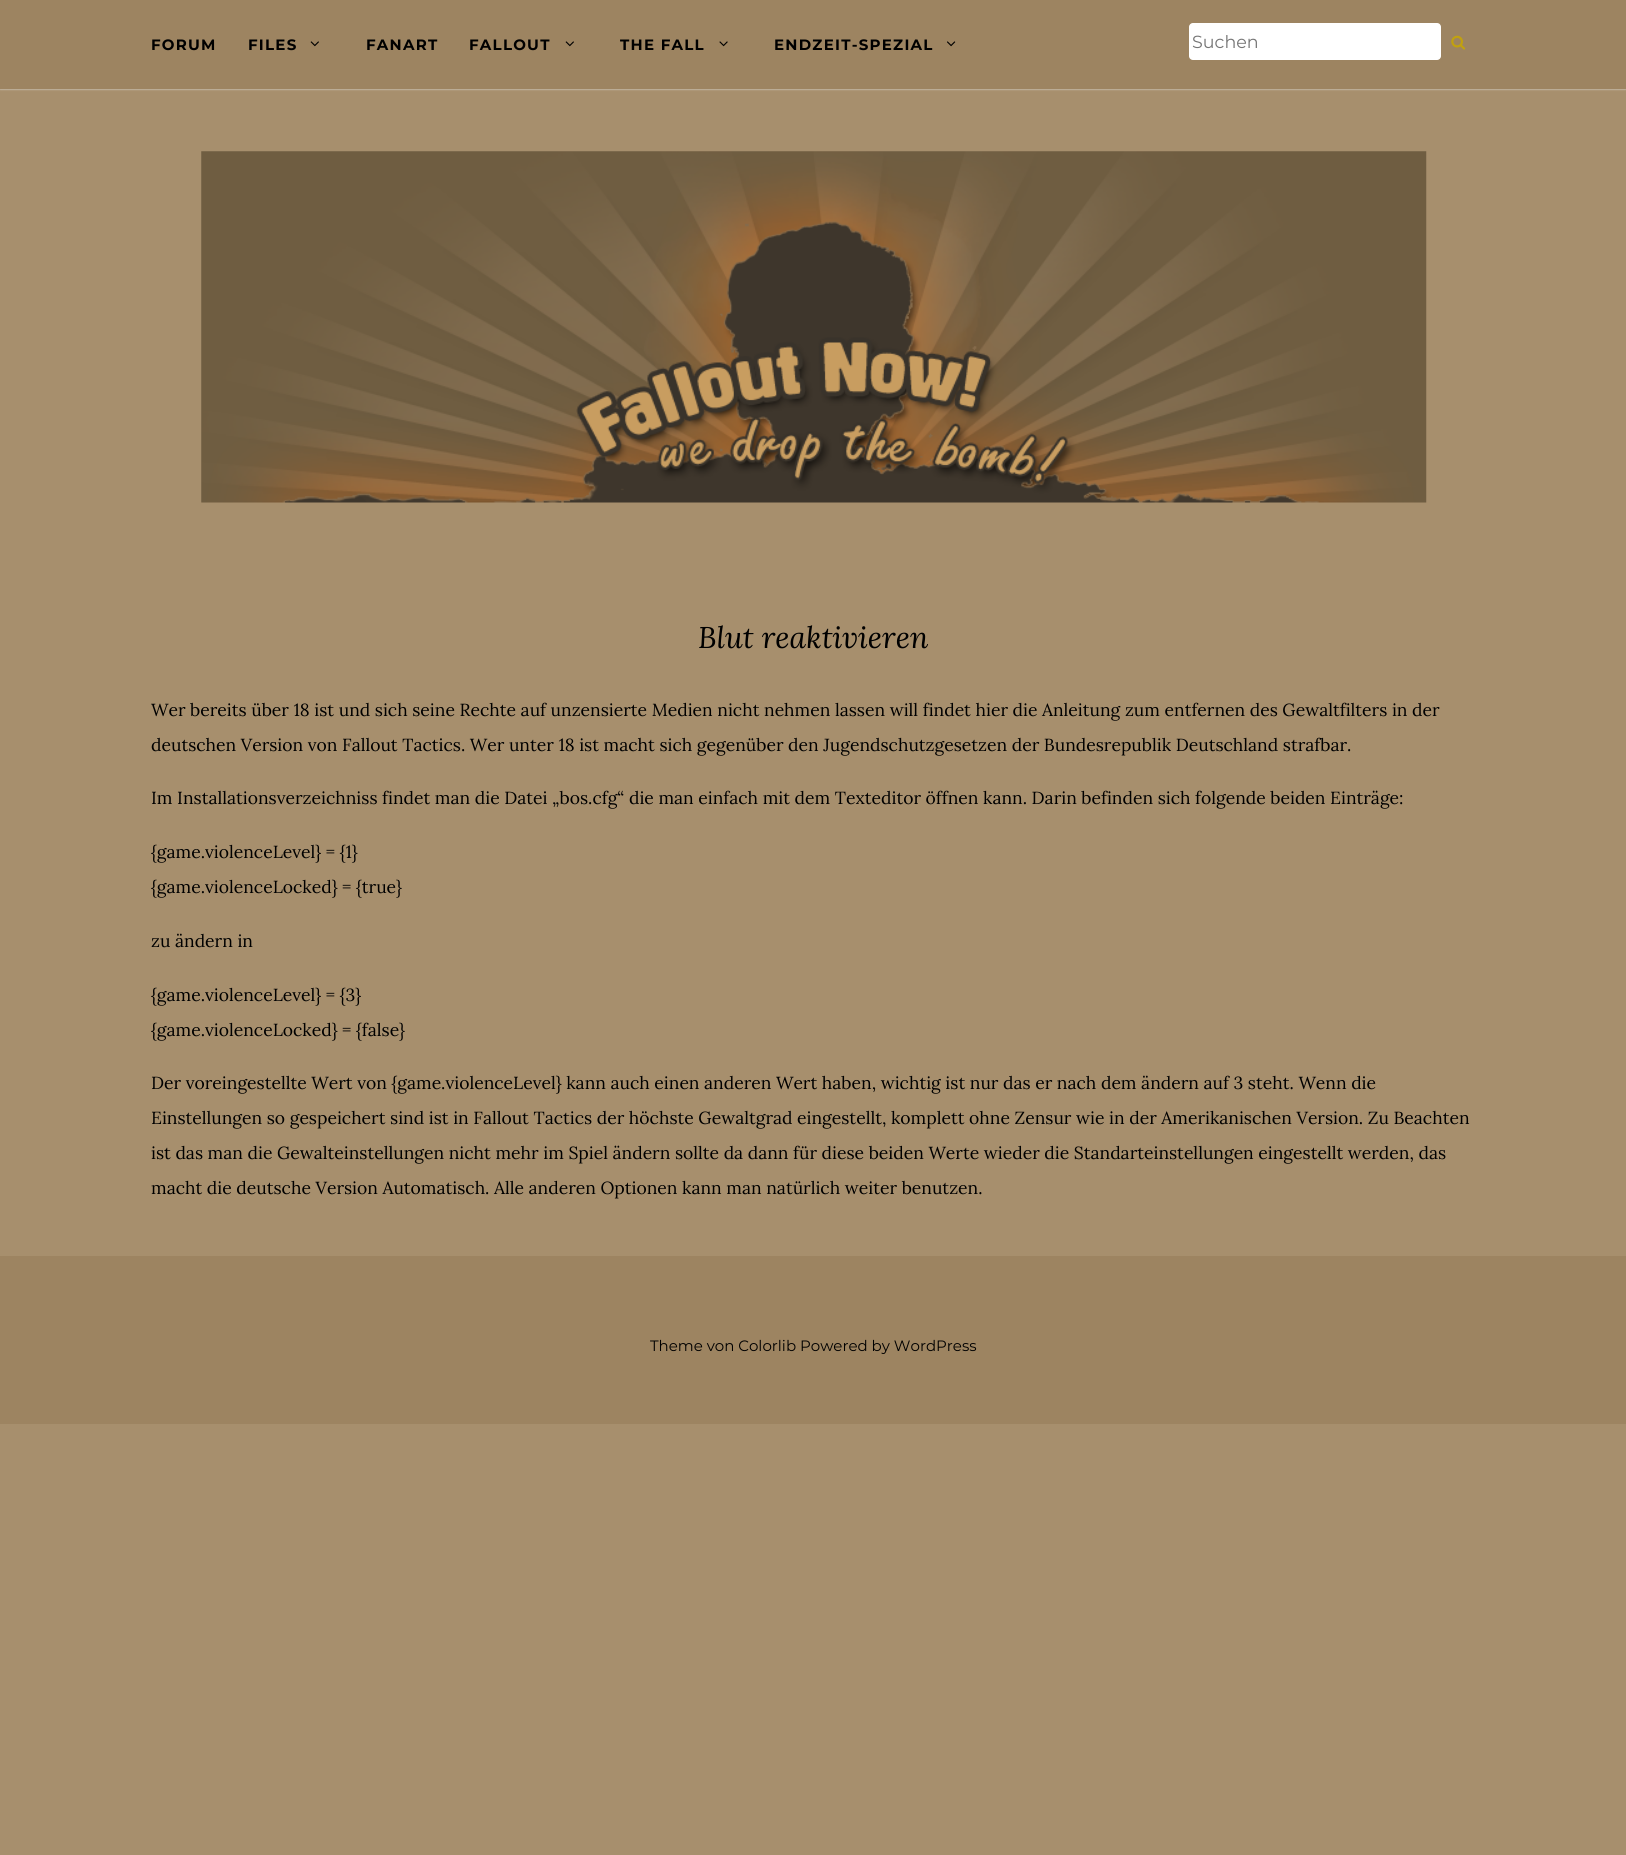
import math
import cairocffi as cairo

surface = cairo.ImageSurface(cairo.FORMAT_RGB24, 1626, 1855)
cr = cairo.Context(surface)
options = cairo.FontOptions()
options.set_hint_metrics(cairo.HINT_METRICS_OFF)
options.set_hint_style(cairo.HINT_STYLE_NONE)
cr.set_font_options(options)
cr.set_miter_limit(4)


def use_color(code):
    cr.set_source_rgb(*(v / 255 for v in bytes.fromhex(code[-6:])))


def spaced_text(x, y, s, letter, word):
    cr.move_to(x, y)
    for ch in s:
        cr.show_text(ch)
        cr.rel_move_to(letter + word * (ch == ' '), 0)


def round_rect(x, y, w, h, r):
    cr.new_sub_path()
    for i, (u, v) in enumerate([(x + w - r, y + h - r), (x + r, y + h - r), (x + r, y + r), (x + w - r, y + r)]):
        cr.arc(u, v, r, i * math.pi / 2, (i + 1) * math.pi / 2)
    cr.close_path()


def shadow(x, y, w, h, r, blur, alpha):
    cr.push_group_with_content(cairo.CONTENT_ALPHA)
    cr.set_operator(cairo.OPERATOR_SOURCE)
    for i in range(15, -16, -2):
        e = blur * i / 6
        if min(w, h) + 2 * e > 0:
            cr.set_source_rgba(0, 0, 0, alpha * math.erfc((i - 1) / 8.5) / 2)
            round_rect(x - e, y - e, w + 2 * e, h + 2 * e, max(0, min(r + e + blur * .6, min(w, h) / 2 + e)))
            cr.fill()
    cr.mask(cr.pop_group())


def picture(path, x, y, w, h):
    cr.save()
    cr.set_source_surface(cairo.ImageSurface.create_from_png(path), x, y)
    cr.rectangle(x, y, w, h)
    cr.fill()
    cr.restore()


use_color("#a78f6d")
cr.paint()
use_color("#e3e3e3")
shadow(0, 0, 1626, 89, 0, 1, 1)
use_color("#9d8461")
cr.rectangle(0, 0, 1626, 89)
cr.fill()
cr.select_font_face("Montserrat", cairo.FONT_SLANT_NORMAL, cairo.FONT_WEIGHT_BOLD)
cr.set_font_size(15)
use_color("#000000")
spaced_text(151, 50, "FORUM", 1.25, 0)
spaced_text(248, 50, "FILES", 1.25, 0)
picture("img1.png", 310, 41, 9, 6)
spaced_text(366, 50, "FANART", 1.25, 0)
spaced_text(469, 50, "FALLOUT", 1.25, 0)
picture("img1.png", 565, 41, 9, 6)
spaced_text(620, 50, "THE FALL", 1.25, 0)
picture("img2.png", 719, 41, 9, 6)
spaced_text(774, 50, "ENDZEIT-SPEZIAL", 1.25, 0)
picture("img3.png", 947, 41, 9, 6)
use_color("#ffffff")
round_rect(1189, 23, 252, 37, 4)
cr.fill()
cr.select_font_face("Montserrat")
cr.set_font_size(17.5)
use_color("#757575")
cr.move_to(1192, 48)
cr.show_text("Suchen")
picture("img4.png", 1451, 35, 15, 15)
picture("img5.png", 201, 151, 1226, 352)
cr.select_font_face("Lora", cairo.FONT_SLANT_ITALIC)
cr.set_font_size(30)
use_color("#000000")
cr.move_to(698, 648)
cr.show_text("Blut reaktivieren")
cr.select_font_face("Lora")
cr.set_font_size(17.5)
cr.move_to(151, 716)
cr.show_text("Wer bereits über 18 ist und sich seine Rechte auf unzensierte Medien nicht nehmen lassen will findet hier die Anleitung zum entfernen des Gewaltfilters in der")
cr.move_to(151, 751)
cr.show_text("deutschen Version von Fallout Tactics. Wer unter 18 ist macht sich gegenüber den Jugendschutzgesetzen der Bundesrepublik Deutschland strafbar.")
cr.move_to(151, 804)
cr.show_text("Im Installationsverzeichniss findet man die Datei „bos.cfg“ die man einfach mit dem Texteditor öffnen kann. Darin befinden sich folgende beiden Einträge:")
cr.move_to(151, 858)
cr.show_text("{game.violenceLevel} = {1}")
cr.move_to(151, 893)
cr.show_text("{game.violenceLocked} = {true}")
cr.move_to(151, 947)
cr.show_text("zu ändern in")
cr.move_to(151, 1001)
cr.show_text("{game.violenceLevel} = {3}")
cr.move_to(151, 1036)
cr.show_text("{game.violenceLocked} = {false}")
cr.move_to(151, 1089)
cr.show_text("Der voreingestellte Wert von {game.violenceLevel} kann auch einen anderen Wert haben, wichtig ist nur das er nach dem ändern auf 3 steht. Wenn die")
cr.move_to(151, 1124)
cr.show_text("Einstellungen so gespeichert sind ist in Fallout Tactics der höchste Gewaltgrad eingestellt, komplett ohne Zensur wie in der Amerikanischen Version. Zu Beachten")
cr.move_to(151, 1159)
cr.show_text("ist das man die Gewalteinstellungen nicht mehr im Spiel ändern sollte da dann für diese beiden Werte wieder die Standarteinstellungen eingestellt werden, das")
cr.move_to(151, 1194)
cr.show_text("macht die deutsche Version Automatisch. Alle anderen Optionen kann man natürlich weiter benutzen.")
use_color("#9d8461")
cr.rectangle(0, 1256, 1626, 168)
cr.fill()
cr.select_font_face("Montserrat")
cr.set_font_size(15)
use_color("#000000")
cr.move_to(650, 1351)
cr.show_text("Theme von Colorlib Powered by WordPress")
surface.write_to_png("result.png")
